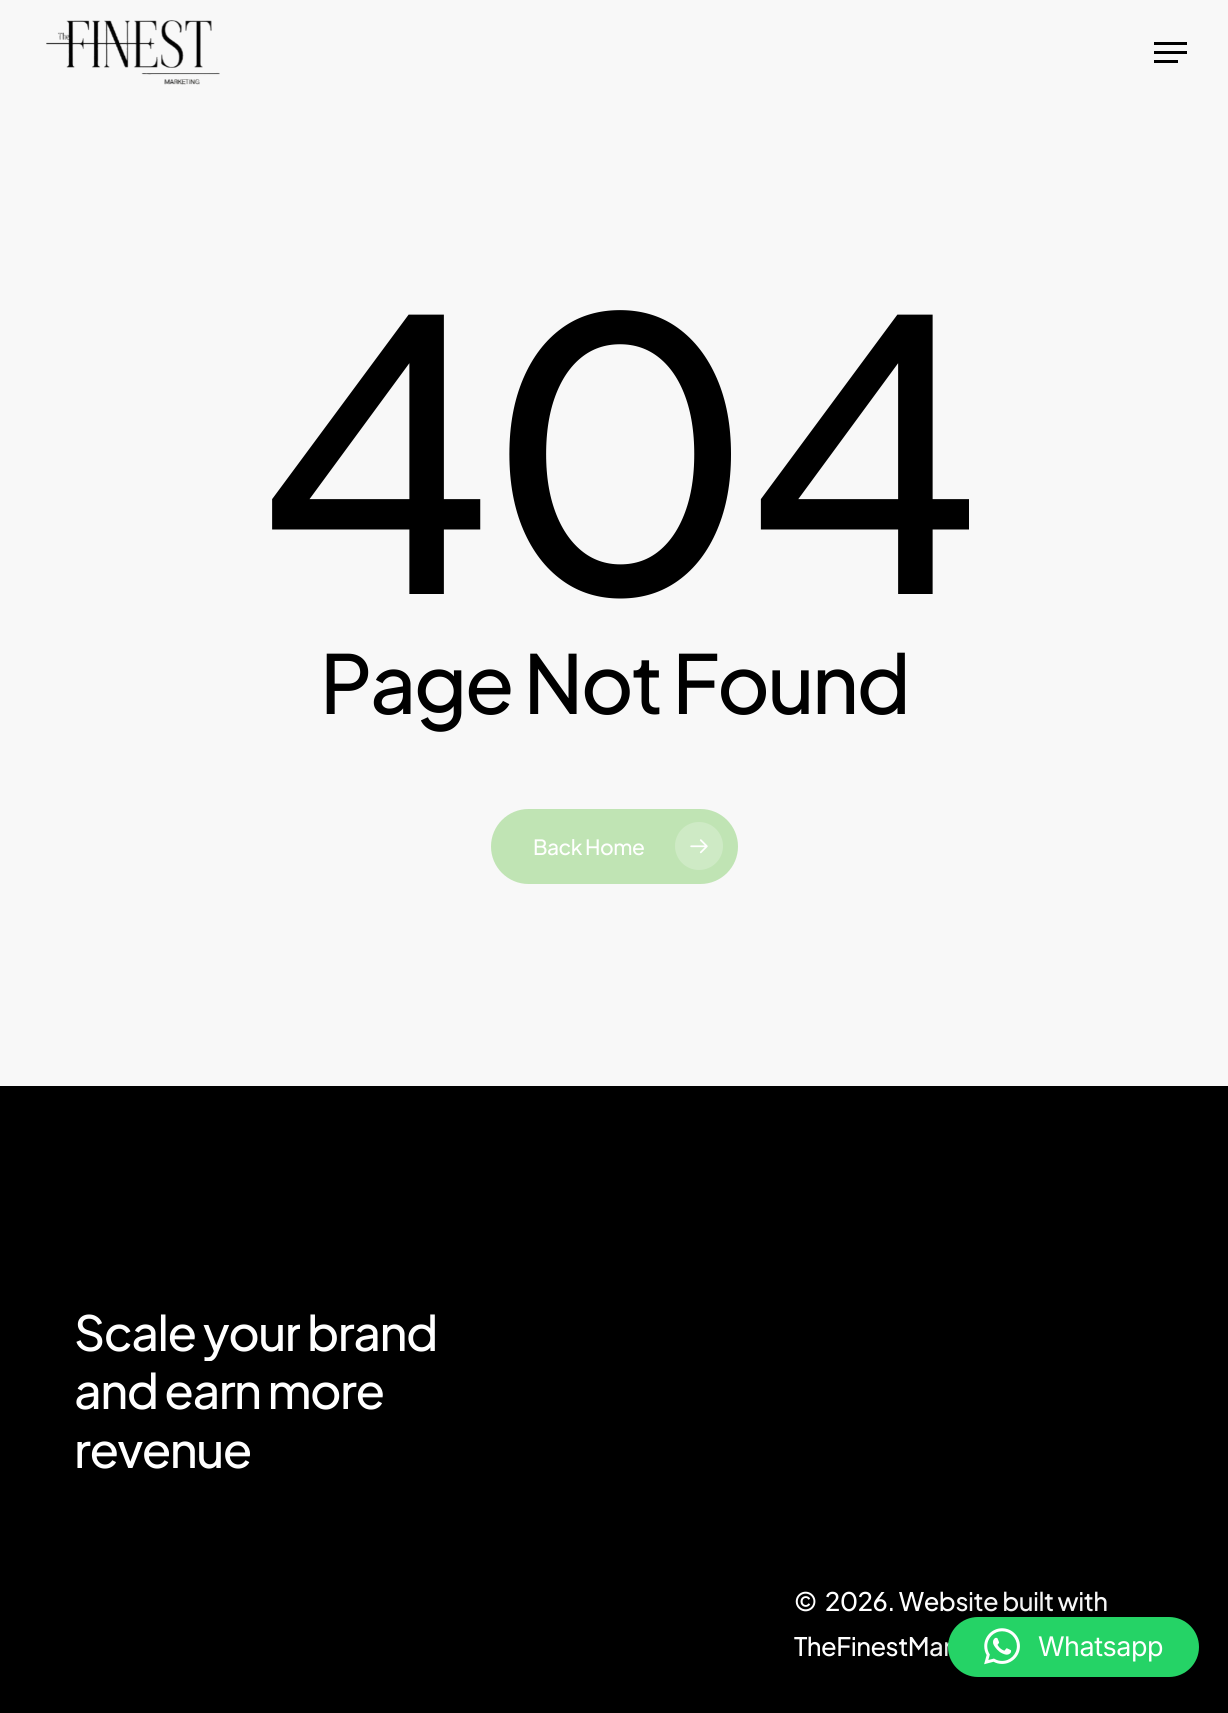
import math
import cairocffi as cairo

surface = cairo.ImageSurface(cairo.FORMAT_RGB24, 1228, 1713)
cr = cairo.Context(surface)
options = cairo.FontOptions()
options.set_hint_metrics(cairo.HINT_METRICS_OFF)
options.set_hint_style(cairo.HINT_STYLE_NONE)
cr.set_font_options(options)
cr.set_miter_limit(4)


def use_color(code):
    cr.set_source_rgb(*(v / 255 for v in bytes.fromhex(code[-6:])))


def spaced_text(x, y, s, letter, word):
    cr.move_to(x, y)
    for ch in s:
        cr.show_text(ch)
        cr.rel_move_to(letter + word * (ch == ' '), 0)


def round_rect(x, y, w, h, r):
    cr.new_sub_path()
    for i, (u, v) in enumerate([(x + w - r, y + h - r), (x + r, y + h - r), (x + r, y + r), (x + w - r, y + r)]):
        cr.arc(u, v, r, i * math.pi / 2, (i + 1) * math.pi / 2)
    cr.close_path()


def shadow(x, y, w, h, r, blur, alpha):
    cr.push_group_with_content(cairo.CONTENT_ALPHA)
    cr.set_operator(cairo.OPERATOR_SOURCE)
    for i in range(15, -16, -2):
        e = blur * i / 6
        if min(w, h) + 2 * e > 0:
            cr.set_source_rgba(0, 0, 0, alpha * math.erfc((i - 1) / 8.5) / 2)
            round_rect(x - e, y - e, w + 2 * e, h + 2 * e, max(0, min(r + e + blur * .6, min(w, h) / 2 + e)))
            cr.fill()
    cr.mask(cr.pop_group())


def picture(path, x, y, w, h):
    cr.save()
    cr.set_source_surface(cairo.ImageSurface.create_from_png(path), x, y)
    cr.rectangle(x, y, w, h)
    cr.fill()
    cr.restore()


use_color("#f8f8f8")
cr.paint()
picture("img1.png", 46, 20, 174, 65)
use_color("#000000")
cr.rectangle(1154, 42, 33, 3)
cr.fill()
cr.rectangle(1154, 60, 24, 3)
cr.fill()
cr.rectangle(1154, 51, 33, 3)
cr.fill()
cr.select_font_face("Plus Jakarta Sans Medium")
cr.set_font_size(375)
spaced_text(256, 594, "404", -11, 0)
cr.set_font_size(81)
spaced_text(320, 714, "Page Not Found", -2.5, 0)
use_color("#c0e4b4")
round_rect(491, 809, 247, 75, 37.5)
cr.fill()
cr.set_font_size(21)
use_color("#ffffff")
spaced_text(533, 855, "Back Home", -0.5, 0)
use_color("#ceeac5")
cr.new_path()
cr.arc(699, 846, 24, 0, 2 * math.pi)
cr.fill()
picture("img2.png", 690, 839, 18, 15)
use_color("#000000")
cr.rectangle(0, 1086, 1228, 627)
cr.fill()
cr.set_font_size(48.25)
use_color("#ffffff")
spaced_text(74, 1351, "Scale", -1.5, 0)
cr.save()
cr.rectangle(203, 1302, 97, 59)
cr.clip()
spaced_text(203, 1351, "your", -1.5, 0)
cr.restore()
spaced_text(307, 1351, "brand", -1.5, 0)
spaced_text(74, 1409, "and earn more", -1.5, 0)
spaced_text(74, 1468, "revenue", -1.5, 0)
cr.set_font_size(25.5)
spaced_text(794, 1611, "©", -0.5, 0)
spaced_text(825, 1611, "2026. Website built with", -0.5, 0)
spaced_text(794, 1656, "TheFinestMar", -0.5, 0)
use_color("#000000")
shadow(948, 1620, 251, 60, 30, 24, 0.16)
shadow(948, 1619, 251, 60, 30, 4.5, 0.06)
use_color("#25d366")
round_rect(948, 1617, 251, 60, 30)
cr.fill()
picture("img3.png", 984, 1628, 36, 37)
cr.select_font_face("Inter")
cr.set_font_size(27)
use_color("#ffffff")
spaced_text(1038, 1656, "Whatsapp", -0.5, 0)
surface.write_to_png("result.png")
